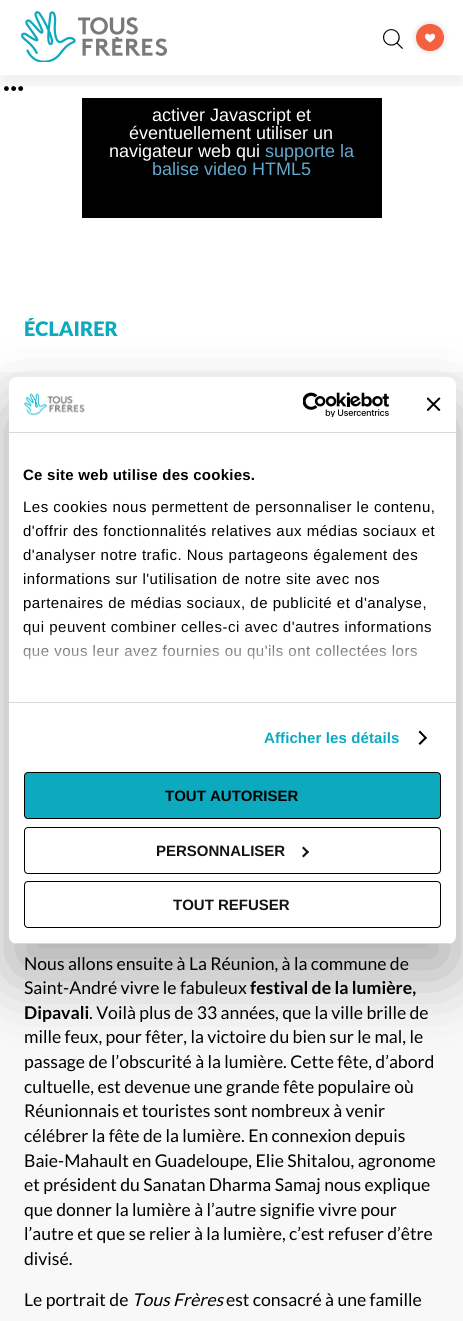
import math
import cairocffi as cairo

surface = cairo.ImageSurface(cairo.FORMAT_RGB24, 463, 1321)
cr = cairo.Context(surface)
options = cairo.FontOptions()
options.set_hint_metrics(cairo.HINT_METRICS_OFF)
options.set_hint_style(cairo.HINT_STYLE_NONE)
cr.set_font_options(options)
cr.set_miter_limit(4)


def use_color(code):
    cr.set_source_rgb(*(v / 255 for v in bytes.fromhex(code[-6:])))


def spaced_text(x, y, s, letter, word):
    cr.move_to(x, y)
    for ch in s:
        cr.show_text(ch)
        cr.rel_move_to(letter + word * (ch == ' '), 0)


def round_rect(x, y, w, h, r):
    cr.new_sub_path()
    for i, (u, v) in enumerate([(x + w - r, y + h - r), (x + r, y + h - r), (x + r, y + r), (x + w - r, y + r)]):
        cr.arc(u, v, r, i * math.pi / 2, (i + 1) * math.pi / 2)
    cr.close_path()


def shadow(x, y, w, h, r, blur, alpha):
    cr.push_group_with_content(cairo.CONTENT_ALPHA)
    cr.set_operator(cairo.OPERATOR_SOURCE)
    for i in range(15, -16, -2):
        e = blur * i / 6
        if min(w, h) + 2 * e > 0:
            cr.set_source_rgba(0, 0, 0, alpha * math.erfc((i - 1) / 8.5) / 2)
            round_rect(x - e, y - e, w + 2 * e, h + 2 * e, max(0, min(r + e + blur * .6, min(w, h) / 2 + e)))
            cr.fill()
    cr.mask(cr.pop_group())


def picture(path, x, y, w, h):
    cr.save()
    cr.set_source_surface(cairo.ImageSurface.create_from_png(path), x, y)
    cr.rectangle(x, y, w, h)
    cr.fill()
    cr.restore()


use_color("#f8f8f8")
cr.paint()
use_color("#ffffff")
cr.rectangle(0, 0, 463, 372)
cr.fill()
picture("img4.png", 4, 86, 20, 5)
use_color("#000000")
cr.rectangle(82, 98, 300, 120)
cr.fill()
cr.save()
cr.rectangle(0, 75, 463, 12)
cr.clip()
use_color("#000000")
shadow(0, 10, 463, 75, 0, 5, 0.06)
cr.restore()
picture("img1.png", 21, 11, 146, 51)
picture("img2.png", 383, 29, 20, 20)
use_color("#000000")
shadow(416, 24, 28, 27, 13.5, 3, 0.16)
use_color("#f5613e")
round_rect(416.5, 24.5, 27, 26, 13)
cr.fill_preserve()
cr.set_line_width(1)
cr.stroke()
picture("img3.png", 425, 33, 10, 10)
cr.select_font_face("Liberation Sans")
cr.set_font_size(18)
use_color("#ffffff")
cr.move_to(152, 121)
cr.show_text("activer Javascript et")
cr.move_to(129, 139)
cr.show_text("éventuellement utiliser un")
cr.move_to(109, 157)
cr.show_text("navigateur web qui")
use_color("#66a8cc")
cr.move_to(265, 157)
cr.show_text("supporte la")
cr.move_to(152, 175)
cr.show_text("balise video HTML5")
cr.select_font_face("Lato Black")
cr.set_font_size(20)
use_color("#0daabf")
cr.move_to(24, 336)
cr.show_text("ÉCLAIRER")
cr.select_font_face("Lato")
cr.set_font_size(17.6)
use_color("#000000")
cr.move_to(24, 970)
cr.show_text("Nous allons ensuite à La Réunion, à la commune de")
cr.move_to(24, 994)
cr.show_text("Saint-André vivre le fabuleux")
cr.select_font_face("Lato", cairo.FONT_SLANT_NORMAL, cairo.FONT_WEIGHT_BOLD)
cr.move_to(250, 994)
cr.show_text("festival de la lumière,")
cr.move_to(24, 1019)
cr.show_text("Dipavali")
cr.select_font_face("Lato")
cr.move_to(89, 1019)
cr.show_text(". Voilà plus de 33 années, que la ville brille de")
cr.move_to(24, 1043)
cr.show_text("mille feux, pour fêter, la victoire du bien sur le mal, le")
cr.move_to(24, 1068)
cr.show_text("passage de l’obscurité à la lumière. Cette fête, d’abord")
cr.move_to(24, 1093)
cr.show_text("cultuelle, est devenue une grande fête populaire où")
cr.move_to(24, 1117)
cr.show_text("Réunionnais et touristes sont nombreux à venir")
cr.move_to(24, 1142)
cr.show_text("célébrer la fête de la lumière. En connexion depuis")
cr.move_to(24, 1167)
cr.show_text("Baie-Mahault en Guadeloupe, Elie Shitalou, agronome")
cr.move_to(24, 1191)
cr.show_text("et président du Sanatan Dharma Samaj nous explique")
cr.move_to(24, 1216)
cr.show_text("que donner la lumière à l’autre signifie vivre pour")
cr.move_to(24, 1240)
cr.show_text("l’autre et que se relier à la lumière, c’est refuser d’être")
cr.move_to(24, 1265)
cr.show_text("divisé.")
cr.move_to(24, 1306)
cr.show_text("Le portrait de")
cr.select_font_face("Lato", cairo.FONT_SLANT_ITALIC)
cr.move_to(132, 1306)
cr.show_text("Tous Frères")
cr.select_font_face("Lato")
cr.move_to(226, 1306)
cr.show_text("est consacré à une famille")
use_color("#000000")
shadow(9, 409, 447, 567, 8, 34, 0.3)
use_color("#ffffff")
round_rect(9, 377, 447, 567, 8)
cr.fill()
use_color("#d9d9d9")
cr.rectangle(9, 432, 447, 1)
cr.fill()
picture("img5.png", 23, 393, 62, 23)
picture("img6.png", 303, 392, 86, 25)
picture("img7.png", 427, 397, 14, 14)
cr.rectangle(9, 702, 447, 1)
cr.fill()
cr.select_font_face("Liberation Sans", cairo.FONT_SLANT_NORMAL, cairo.FONT_WEIGHT_BOLD)
cr.set_font_size(15)
use_color("#000000")
spaced_text(23, 480, "Ce site web utilise des cookies.", 0.25, 0)
cr.select_font_face("Liberation Sans")
spaced_text(23, 512, "Les cookies nous permettent de personnaliser le contenu,", 0.5, 0)
spaced_text(23, 536, "d'offrir des fonctionnalités relatives aux médias sociaux et", 0.5, 0)
spaced_text(23, 560, "d'analyser notre trafic. Nous partageons également des", 0.5, 0)
spaced_text(23, 584, "informations sur l'utilisation de notre site avec nos", 0.5, 0)
spaced_text(23, 608, "partenaires de médias sociaux, de publicité et d'analyse,", 0.5, 0)
spaced_text(23, 632, "qui peuvent combiner celles-ci avec d'autres informations", 0.5, 0)
spaced_text(23, 656, "que vous leur avez fournies ou qu'ils ont collectées lors", 0.5, 0)
gradient = cairo.LinearGradient(226, 702, 226, 627)
gradient.add_color_stop_rgba(0, 1, 1, 1, 1)
gradient.add_color_stop_rgba(0.5, 1, 1, 1, 0.8)
gradient.add_color_stop_rgba(1, 1, 1, 1, 0)
cr.set_source(gradient)
cr.rectangle(23, 628, 408, 32)
cr.fill()
cr.select_font_face("Liberation Sans", cairo.FONT_SLANT_NORMAL, cairo.FONT_WEIGHT_BOLD)
use_color("#0daabf")
spaced_text(264, 743, "Afficher les détails", 0.1, 0)
use_color("#000000")
cr.new_path()
cr.move_to(420, 730.5)
cr.line_to(427, 738)
cr.line_to(425.5, 739)
cr.line_to(418.5, 732)
cr.close_path()
cr.fill()
cr.new_path()
cr.move_to(425.5, 736.5)
cr.line_to(427, 738)
cr.line_to(420, 745)
cr.line_to(418.5, 743.5)
cr.close_path()
cr.fill()
cr.save()
round_rect(9, 377, 447, 567, 8)
cr.clip()
use_color("#d9d9d9")
cr.rectangle(9, 943, 447, 1)
cr.fill()
cr.restore()
use_color("#0daabf")
round_rect(24.5, 772.5, 416, 46, 3.5)
cr.fill_preserve()
use_color("#000000")
cr.stroke()
cr.move_to(165, 801)
cr.show_text("TOUT AUTORISER")
round_rect(24.5, 827.5, 416, 46, 3.5)
cr.stroke()
use_color("#141414")
cr.move_to(156, 856)
cr.show_text("PERSONNALISER")
cr.new_path()
cr.move_to(303.5, 846.5)
cr.line_to(309, 852)
cr.line_to(307.5, 853.5)
cr.line_to(302, 848)
cr.close_path()
cr.fill()
cr.new_path()
cr.move_to(307.5, 850.5)
cr.line_to(309, 852)
cr.line_to(303.5, 857.5)
cr.line_to(302, 856)
cr.close_path()
cr.fill()
round_rect(24.5, 881.5, 416, 46, 3.5)
use_color("#000000")
cr.stroke()
use_color("#141414")
cr.move_to(173, 910)
cr.show_text("TOUT REFUSER")
surface.write_to_png("result.png")
